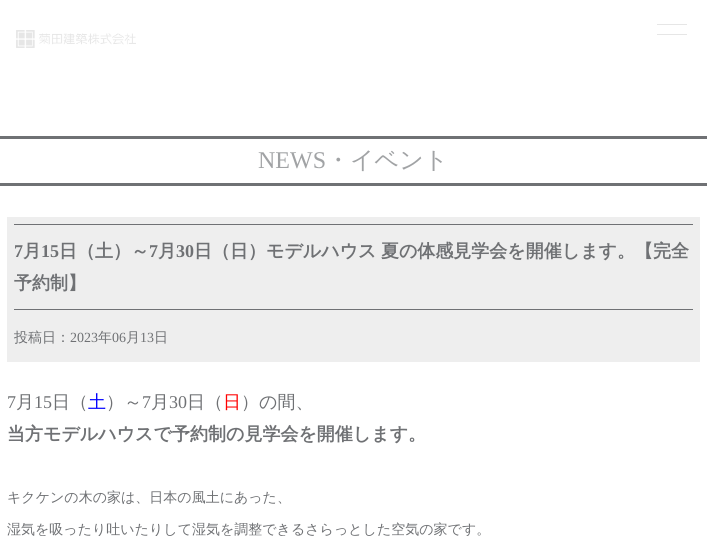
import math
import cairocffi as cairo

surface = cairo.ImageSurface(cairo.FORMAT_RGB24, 707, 536)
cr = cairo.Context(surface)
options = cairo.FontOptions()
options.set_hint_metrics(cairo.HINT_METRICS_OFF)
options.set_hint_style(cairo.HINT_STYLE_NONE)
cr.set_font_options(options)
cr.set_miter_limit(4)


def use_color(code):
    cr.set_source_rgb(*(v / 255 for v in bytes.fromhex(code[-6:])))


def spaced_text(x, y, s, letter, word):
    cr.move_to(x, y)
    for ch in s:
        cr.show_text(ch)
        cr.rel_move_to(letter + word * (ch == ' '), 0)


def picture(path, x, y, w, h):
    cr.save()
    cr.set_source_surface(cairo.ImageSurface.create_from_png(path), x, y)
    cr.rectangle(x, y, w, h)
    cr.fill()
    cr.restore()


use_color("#ffffff")
cr.paint()
picture("img1.png", 16, 30, 120, 18)
use_color("#e6e6e6")
cr.rectangle(657, 24, 30, 1)
cr.fill()
cr.rectangle(657, 34, 30, 1)
cr.fill()
use_color("#6f7174")
cr.rectangle(0, 136, 707, 3)
cr.fill()
cr.rectangle(0, 183, 707, 3)
cr.fill()
cr.select_font_face("Liberation Serif")
cr.set_font_size(24)
use_color("#a1a3a5")
cr.move_to(258, 168)
cr.show_text("NEWS")
cr.select_font_face("WenQuanYi Zen Hei Medium")
cr.move_to(326, 168)
cr.show_text("・イベント")
use_color("#eeeeee")
cr.rectangle(7, 217, 693, 145)
cr.fill()
use_color("#6f7174")
cr.rectangle(14, 224, 679, 1)
cr.fill()
cr.rectangle(14, 309, 679, 1)
cr.fill()
cr.select_font_face("Liberation Serif", cairo.FONT_SLANT_NORMAL, cairo.FONT_WEIGHT_BOLD)
cr.set_font_size(18)
cr.move_to(14, 257)
cr.show_text("7")
cr.select_font_face("WenQuanYi Zen Hei", cairo.FONT_SLANT_NORMAL, cairo.FONT_WEIGHT_BOLD)
cr.move_to(23, 257)
cr.show_text("月")
cr.select_font_face("Liberation Serif", cairo.FONT_SLANT_NORMAL, cairo.FONT_WEIGHT_BOLD)
cr.move_to(41, 257)
cr.show_text("15")
cr.select_font_face("WenQuanYi Zen Hei", cairo.FONT_SLANT_NORMAL, cairo.FONT_WEIGHT_BOLD)
cr.move_to(59, 257)
cr.show_text("日（土）～")
cr.select_font_face("Liberation Serif", cairo.FONT_SLANT_NORMAL, cairo.FONT_WEIGHT_BOLD)
cr.move_to(149, 257)
cr.show_text("7")
cr.select_font_face("WenQuanYi Zen Hei", cairo.FONT_SLANT_NORMAL, cairo.FONT_WEIGHT_BOLD)
cr.move_to(158, 257)
cr.show_text("月")
cr.select_font_face("Liberation Serif", cairo.FONT_SLANT_NORMAL, cairo.FONT_WEIGHT_BOLD)
cr.move_to(176, 257)
cr.show_text("30")
cr.select_font_face("WenQuanYi Zen Hei", cairo.FONT_SLANT_NORMAL, cairo.FONT_WEIGHT_BOLD)
spaced_text(194, 257, "日（日）モデルハウス 夏の体感見学会を開催します。【完全", 0, -1)
cr.move_to(14, 289)
cr.show_text("予約制】")
cr.select_font_face("WenQuanYi Zen Hei Medium")
cr.set_font_size(14)
cr.move_to(14, 342)
cr.show_text("投稿日：")
cr.select_font_face("Liberation Serif")
cr.move_to(70, 342)
cr.show_text("2023")
cr.select_font_face("WenQuanYi Zen Hei Medium")
cr.move_to(98, 342)
cr.show_text("年")
cr.select_font_face("Liberation Serif")
cr.move_to(112, 342)
cr.show_text("06")
cr.select_font_face("WenQuanYi Zen Hei Medium")
cr.move_to(126, 342)
cr.show_text("月")
cr.select_font_face("Liberation Serif")
cr.move_to(140, 342)
cr.show_text("13")
cr.select_font_face("WenQuanYi Zen Hei Medium")
cr.move_to(154, 342)
cr.show_text("日")
cr.select_font_face("Liberation Serif")
cr.set_font_size(18)
cr.move_to(7, 408)
cr.show_text("7")
cr.select_font_face("WenQuanYi Zen Hei Medium")
cr.move_to(16, 408)
cr.show_text("月")
cr.select_font_face("Liberation Serif")
cr.move_to(34, 408)
cr.show_text("15")
cr.select_font_face("WenQuanYi Zen Hei Medium")
cr.move_to(52, 408)
cr.show_text("日（")
use_color("#0000ff")
cr.move_to(88, 408)
cr.show_text("土")
use_color("#6f7174")
cr.move_to(106, 408)
cr.show_text("）～")
cr.select_font_face("Liberation Serif")
cr.move_to(142, 408)
cr.show_text("7")
cr.select_font_face("WenQuanYi Zen Hei Medium")
cr.move_to(151, 408)
cr.show_text("月")
cr.select_font_face("Liberation Serif")
cr.move_to(169, 408)
cr.show_text("30")
cr.select_font_face("WenQuanYi Zen Hei Medium")
cr.move_to(187, 408)
cr.show_text("日（")
use_color("#ff0000")
cr.move_to(223, 408)
cr.show_text("日")
use_color("#6f7174")
cr.move_to(241, 408)
cr.show_text("）の間、")
cr.select_font_face("WenQuanYi Zen Hei", cairo.FONT_SLANT_NORMAL, cairo.FONT_WEIGHT_BOLD)
cr.move_to(7, 440)
cr.show_text("当方モデルハウスで予約制の見学会を開催します。")
cr.select_font_face("WenQuanYi Zen Hei Medium")
cr.set_font_size(14)
cr.move_to(7, 502)
cr.show_text("キクケンの木の家は、日本の風土にあった、")
cr.move_to(7, 534)
cr.show_text("湿気を吸ったり吐いたりして湿気を調整できるさらっとした空気の家です。")
surface.write_to_png("result.png")
